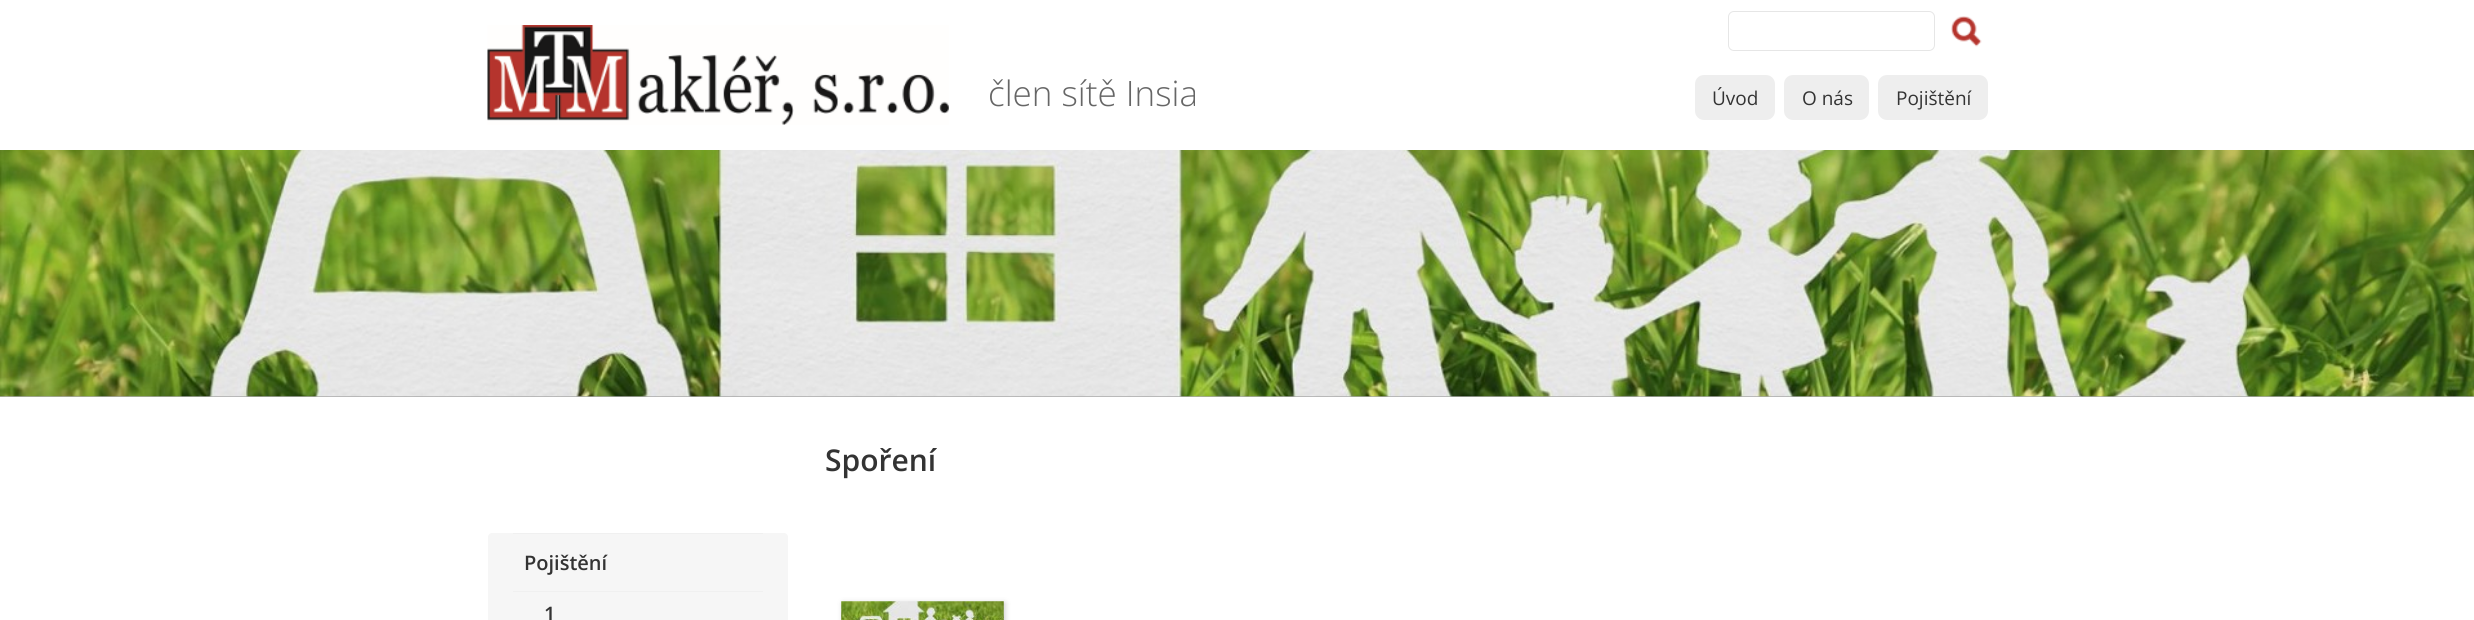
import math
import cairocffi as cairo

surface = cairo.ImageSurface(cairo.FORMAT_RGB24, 2474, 620)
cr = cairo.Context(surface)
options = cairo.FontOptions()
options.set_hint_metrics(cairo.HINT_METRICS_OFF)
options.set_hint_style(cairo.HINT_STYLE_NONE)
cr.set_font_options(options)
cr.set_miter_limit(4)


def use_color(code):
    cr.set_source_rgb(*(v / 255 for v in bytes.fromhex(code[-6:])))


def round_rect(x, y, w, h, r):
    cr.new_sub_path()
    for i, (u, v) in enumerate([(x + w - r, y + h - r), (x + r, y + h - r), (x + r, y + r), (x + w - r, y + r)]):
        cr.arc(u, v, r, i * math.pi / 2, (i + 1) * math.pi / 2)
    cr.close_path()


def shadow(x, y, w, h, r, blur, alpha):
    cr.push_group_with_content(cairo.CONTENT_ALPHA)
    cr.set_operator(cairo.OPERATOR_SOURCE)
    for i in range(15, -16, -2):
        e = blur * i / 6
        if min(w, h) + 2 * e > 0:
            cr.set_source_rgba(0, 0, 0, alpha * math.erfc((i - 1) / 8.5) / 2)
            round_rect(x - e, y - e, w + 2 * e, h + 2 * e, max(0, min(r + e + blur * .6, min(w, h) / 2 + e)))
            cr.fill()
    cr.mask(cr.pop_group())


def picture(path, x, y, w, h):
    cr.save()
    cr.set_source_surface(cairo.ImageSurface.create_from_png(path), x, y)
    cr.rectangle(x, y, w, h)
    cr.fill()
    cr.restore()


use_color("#ffffff")
cr.paint()
picture("img1.png", 487, 25, 462, 100)
cr.select_font_face("Open Sans Light")
cr.set_font_size(35)
use_color("#666666")
cr.move_to(988, 106)
cr.show_text("člen sítě Insia")
round_rect(1728.5, 11.5, 206, 39, 5.5)
use_color("#e6e6e6")
cr.set_line_width(1)
cr.stroke()
picture("img2.png", 1951, 16, 31, 31)
use_color("#eeeeee")
round_rect(1695, 75, 80, 45, 9)
cr.fill()
cr.select_font_face("Open Sans")
cr.set_font_size(19)
use_color("#333333")
cr.move_to(1712, 105)
cr.show_text("Úvod")
use_color("#eeeeee")
round_rect(1784, 75, 85, 45, 9)
cr.fill()
use_color("#333333")
cr.move_to(1802, 105)
cr.show_text("O nás")
use_color("#eeeeee")
round_rect(1878, 75, 110, 45, 9)
cr.fill()
use_color("#333333")
cr.move_to(1896, 105)
cr.show_text("Pojištění")
use_color("#aaaaaa")
cr.rectangle(0, 396, 2474, 1)
cr.fill()
picture("img3.png", 0, 150, 2474, 247)
cr.select_font_face("Open Sans SemiBold")
cr.set_font_size(30)
use_color("#333333")
cr.move_to(825, 471)
cr.show_text("Spoření")
use_color("#000000")
shadow(843, 603, 162, 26, 0, 3, 0.2)
picture("img4.png", 841, 601, 163, 19)
use_color("#f6f6f6")
round_rect(488, 533, 300, 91, 4)
cr.fill()
use_color("#f0f0f0")
cr.rectangle(513, 533, 250, 1)
cr.fill()
cr.set_font_size(20)
use_color("#333333")
cr.move_to(524, 570)
cr.show_text("Pojištění")
use_color("#f0f0f0")
cr.rectangle(513, 591, 250, 1)
cr.fill()
use_color("#333333")
cr.move_to(544, 621)
cr.show_text("1")
surface.write_to_png("result.png")
